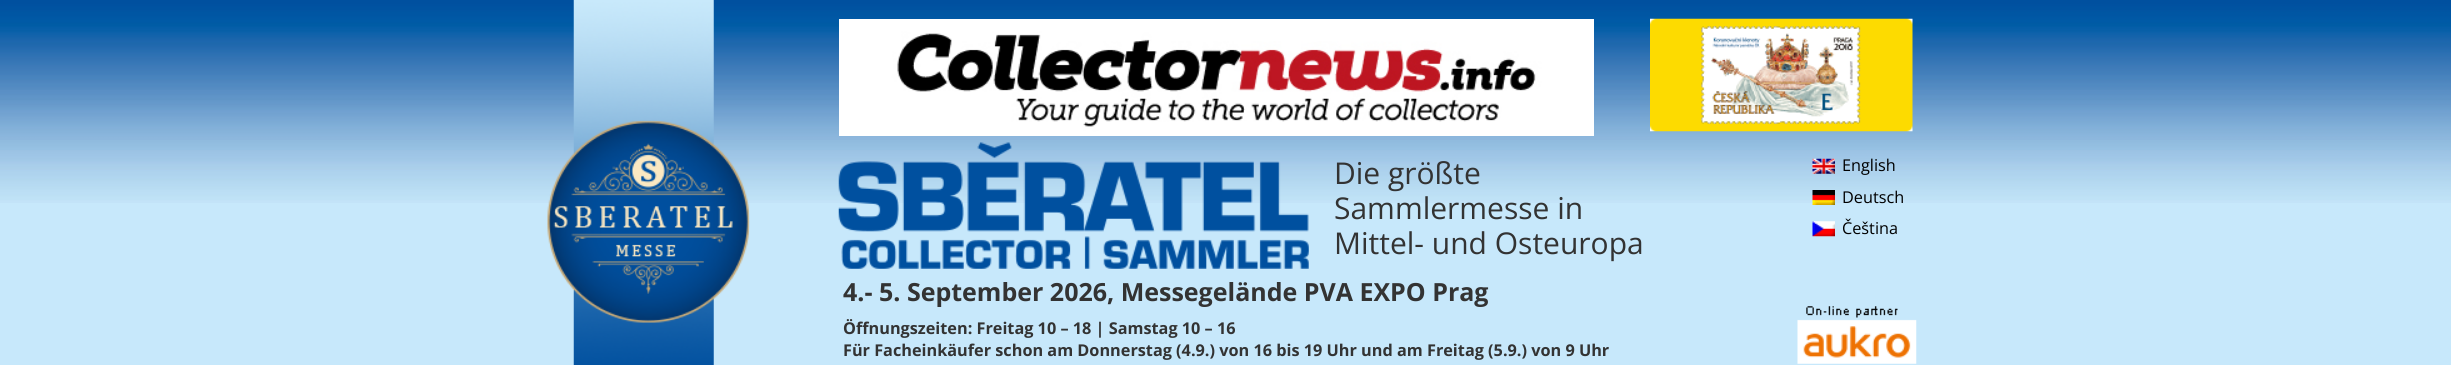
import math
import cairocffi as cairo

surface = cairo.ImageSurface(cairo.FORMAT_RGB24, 2451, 365)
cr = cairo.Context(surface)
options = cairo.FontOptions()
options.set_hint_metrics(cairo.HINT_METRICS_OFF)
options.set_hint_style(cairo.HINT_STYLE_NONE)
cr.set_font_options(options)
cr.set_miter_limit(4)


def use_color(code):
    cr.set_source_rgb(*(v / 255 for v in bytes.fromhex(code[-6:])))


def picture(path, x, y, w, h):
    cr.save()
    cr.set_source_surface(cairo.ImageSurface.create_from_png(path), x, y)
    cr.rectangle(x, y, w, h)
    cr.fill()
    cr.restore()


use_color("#c7e8fb")
cr.paint()
picture("img1.png", 0, 0, 2451, 203)
picture("img2.png", 547, 0, 203, 365)
cr.rectangle(840.5, 20.5, 752, 114)
use_color("#ffffff")
cr.set_line_width(3)
cr.stroke()
picture("img3.png", 842, 22, 749, 111)
picture("img4.png", 1650, 18, 263, 114)
picture("img5.png", 838, 142, 471, 127)
cr.select_font_face("Open Sans")
cr.set_font_size(30)
use_color("#333333")
cr.move_to(1334, 184)
cr.show_text("Die größte")
cr.move_to(1334, 219)
cr.show_text("Sammlermesse in")
cr.move_to(1334, 254)
cr.show_text("Mittel- und Osteuropa")
picture("img6.png", 1812, 158, 23, 16)
cr.set_font_size(16.25)
use_color("#000000")
cr.move_to(1842, 171)
cr.show_text("English")
picture("img7.png", 1812, 190, 23, 15)
cr.move_to(1842, 203)
cr.show_text("Deutsch")
picture("img8.png", 1812, 221, 23, 16)
cr.move_to(1842, 234)
cr.show_text("Čeština")
cr.select_font_face("Open Sans", cairo.FONT_SLANT_NORMAL, cairo.FONT_WEIGHT_BOLD)
cr.set_font_size(25)
use_color("#333333")
cr.move_to(843, 301)
cr.show_text("4.- 5. September 2026, Messegelände PVA EXPO Prag")
cr.set_font_size(16.25)
cr.move_to(843, 334)
cr.show_text("Öffnungszeiten: Freitag 10 – 18 | Samstag 10 – 16")
cr.move_to(843, 356)
cr.show_text("Für Facheinkäufer schon am Donnerstag (4.9.) von 16 bis 19 Uhr und am Freitag (5.9.) von 9 Uhr")
picture("img9.png", 1797, 306, 120, 58)
surface.write_to_png("result.png")
